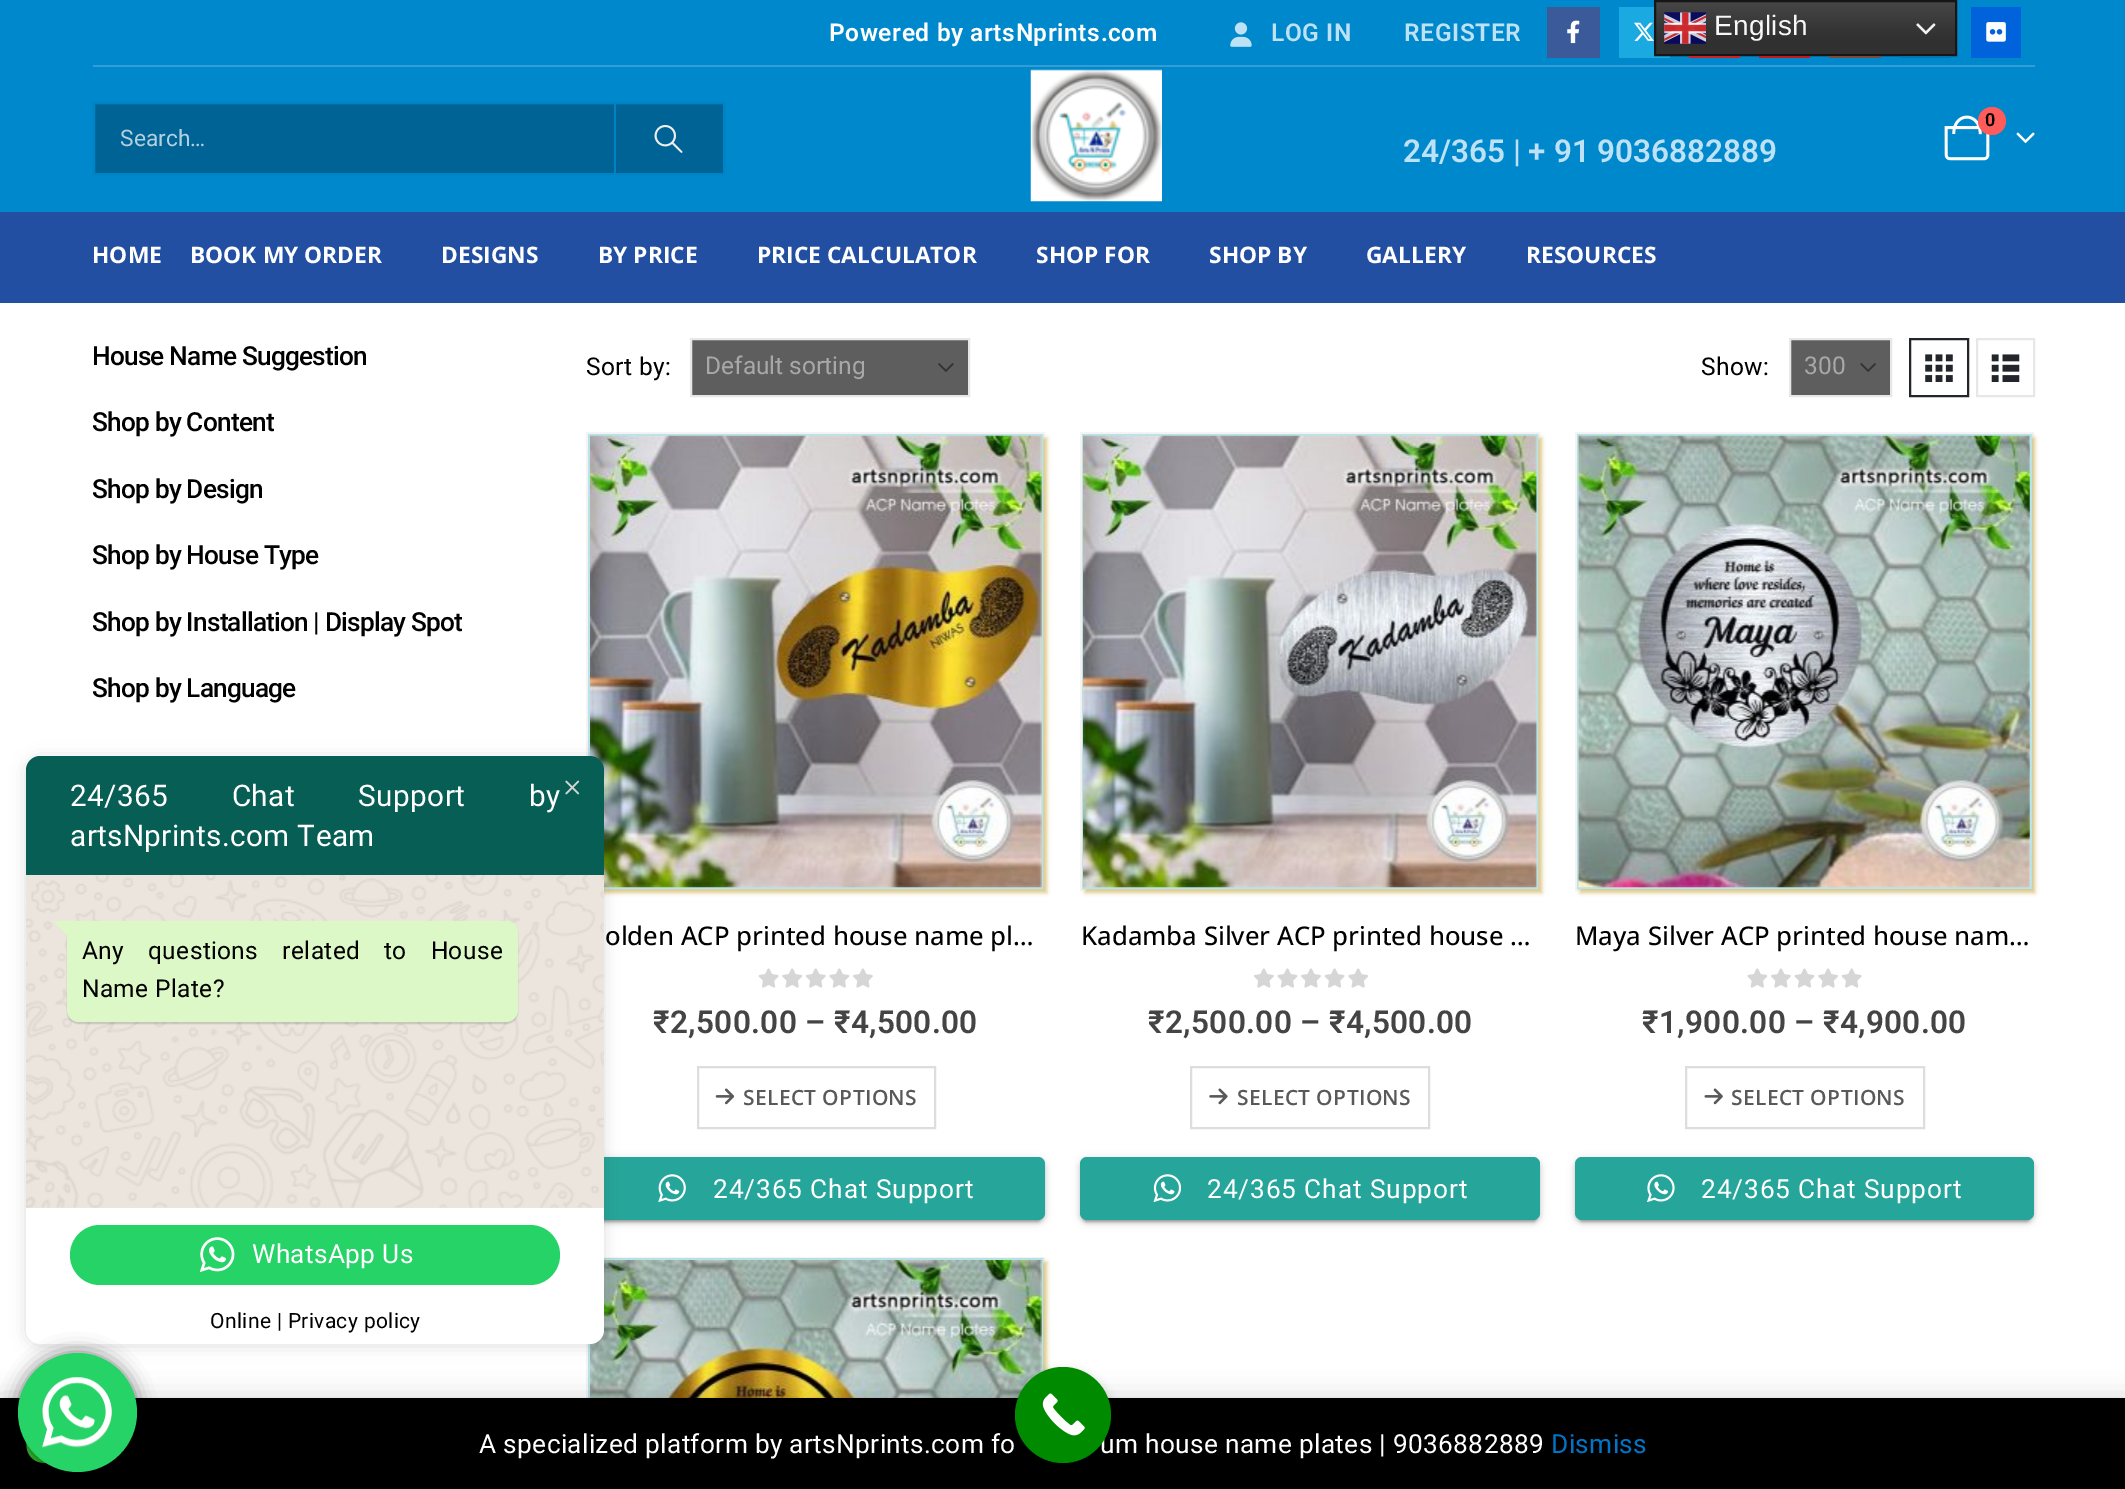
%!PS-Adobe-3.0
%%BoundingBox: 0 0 2125 1489
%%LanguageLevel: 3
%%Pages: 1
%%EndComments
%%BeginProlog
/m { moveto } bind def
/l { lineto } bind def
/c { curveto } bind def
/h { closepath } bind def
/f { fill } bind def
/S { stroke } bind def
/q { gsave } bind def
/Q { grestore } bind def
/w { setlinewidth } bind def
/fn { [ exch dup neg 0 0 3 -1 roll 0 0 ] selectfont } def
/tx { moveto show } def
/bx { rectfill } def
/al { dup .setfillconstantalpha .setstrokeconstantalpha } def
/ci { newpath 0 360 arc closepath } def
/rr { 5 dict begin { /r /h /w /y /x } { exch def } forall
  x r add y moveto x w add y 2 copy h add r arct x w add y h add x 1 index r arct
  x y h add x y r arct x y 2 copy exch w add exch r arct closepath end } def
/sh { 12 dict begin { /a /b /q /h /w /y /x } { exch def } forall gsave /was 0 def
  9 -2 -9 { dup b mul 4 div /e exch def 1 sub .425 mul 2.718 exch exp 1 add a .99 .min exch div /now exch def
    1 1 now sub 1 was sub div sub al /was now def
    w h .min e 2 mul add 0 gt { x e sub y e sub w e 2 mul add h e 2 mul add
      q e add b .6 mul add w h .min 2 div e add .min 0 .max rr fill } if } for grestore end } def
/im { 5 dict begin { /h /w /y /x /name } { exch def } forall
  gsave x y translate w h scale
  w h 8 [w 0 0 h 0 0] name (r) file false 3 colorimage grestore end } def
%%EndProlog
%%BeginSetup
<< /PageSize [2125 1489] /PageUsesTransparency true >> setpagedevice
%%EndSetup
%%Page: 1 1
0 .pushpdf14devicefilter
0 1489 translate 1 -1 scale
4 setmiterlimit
1 setgray
0 0 2125 1489 bx
0 0.533 0.8 setrgbcolor
0 0 2125 212 bx
0.102 0.663 0.882 setrgbcolor
1619 7 51 51 bx
q 1656 2 m 1955 2 l 1955 54 l 1656 54 l h clip newpath
<< /ShadingType 2 /ColorSpace /DeviceRGB /Coords [1805 0 1805 56] /Extend [true true] /Function << /FunctionType 3 /Domain [0 1] /Functions [<< /FunctionType 2 /Domain [0 1] /C0 [0.278 0.278 0.278] /C1 [0.188 0.188 0.188] /N 1 >> << /FunctionType 2 /Domain [0 1] /C0 [0.188 0.188 0.188] /C1 [0.188 0.188 0.188] /N 1 >>] /Bounds [0.7] /Encode [0 1 0 1] >> >> shfill Q
0.086 setgray
2 w
1655 1 301 54 rectstroke
(image0.raw) 1664 12 42 32 im
/LiberationSans-Regular 28 fn
0.969 setgray
1714 35 m 0.35 0 (English) ashow
(image1.raw) 1916 23 20 12 im
0.196 0.62 0.835 setrgbcolor
93 65 1942 2 bx
/Roboto-SemiBold 24.5 fn
1 setgray
829 41 m 0.6 0 (Powered by artsNprints.com) ashow
(image2.raw) 1230 22 22 25 im
0.741 0.882 0.961 setrgbcolor
1271 41 m 0.6 0 (LOG IN) ashow
1404 41 m 0.6 0 (REGISTER) ashow
0.231 0.353 0.604 setrgbcolor
1547 7 53 51 bx
(image3.raw) 1567 20 13 24 im
(image4.raw) 1634 22 20 19 im
0.8 0.129 0.153 setrgbcolor
1689 56 51 2 bx
0.765 0.098 0.118 setrgbcolor
1759 56 51 2 bx
0.486 0.29 0.227 setrgbcolor
1829 56 52 2 bx
0 0.451 0.698 setrgbcolor
1901 56 50 2 bx
0 0.388 0.863 setrgbcolor
1971 7 50 51 bx
(image5.raw) 1986 22 20 20 im
0 0.388 0.584 setrgbcolor
94 103 m 724 103 l 724 174 l 94 174 l h q f Q
0 0.514 0.769 setrgbcolor
S
614 103 2 70 bx
/Roboto-Regular 22.75 fn
0.702 0.816 0.875 setrgbcolor
(Search…) 120 146 tx
(image6.raw) 654 125 29 28 im
(image7.raw) 1030 69 132 133 im
(image8.raw) 1944 115 46 46 im
1 0.357 0.357 setrgbcolor
1992 121 14 ci f
/Roboto-SemiBold 18 fn
0 setgray
1985 126 m 0.35 0 (0) ashow
(image9.raw) 2016 132 19 12 im
/Roboto-SemiBold 31.5 fn
0.741 0.882 0.961 setrgbcolor
(24/365 | + 91 9036882889) 1403 162 tx
0.133 0.31 0.635 setrgbcolor
0 212 2125 91 bx
/OpenSans-Bold 22.75 fn
1 setgray
(HOME) 92 263 tx
(BOOK MY ORDER) 190 263 tx
(DESIGNS) 441 263 tx
(BY PRICE) 598 263 tx
(PRICE CALCULATOR) 757 263 tx
(SHOP FOR) 1036 263 tx
(SHOP BY) 1209 263 tx
(GALLERY) 1366 263 tx
(RESOURCES) 1526 263 tx
/Roboto-Medium 26.25 fn
0 setgray
92 365 m -0.8 0 (House Name Suggestion) ashow
92 431 m -0.8 0 (Shop by Content) ashow
92 498 m -0.8 0 (Shop by Design) ashow
92 564 m -0.8 0 (Shop by House Type) ashow
92 631 m -0.8 0 (Shop by Installation | Display Spot) ashow
92 697 m -0.8 0 (Shop by Language) ashow
/Roboto-Regular 24.5 fn
586 375 m 0.35 0 (Sort by:) ashow
0.369 setgray
692 340 276 55 bx
(image10.raw) 938 363 16 9 im
0.906 setgray
691 339 278 57 rectstroke
0.659 setgray
(Default sorting) 705 374 tx
0 setgray
1701 375 m 0.35 0 (Show:) ashow
0.369 setgray
1791 340 99 55 bx
(image11.raw) 1860 363 16 9 im
0.906 setgray
1790 339 101 57 rectstroke
0.659 setgray
(300) 1804 374 tx
0.133 0.145 0.161 setrgbcolor
1910 339 58 57 rectstroke
(image12.raw) 1925 354 28 28 im
0.906 setgray
1977 339 57 57 rectstroke
(image13.raw) 1991 354 29 28 im
0.957 setgray
587 433 457 457 rectstroke
0.871 0.788 0.545 setrgbcolor
592 438 455 455 0 2 1 sh
0.722 0.89 0.91 setrgbcolor
589 435 453 453 rectstroke
(image14.raw) 590 435 452 453 im
/OpenSans-Medium 25.75 fn
0 setgray
(olden ACP printed house name pl…) 605 945 tx
(image15.raw) 758 968 115 20 im
/Roboto-SemiBold 31.5 fn
0.267 setgray
653 1033 m 0.35 0 (₹2,500.00 – ₹4,500.00) ashow
0.867 setgray
698 1067 237 61 rectstroke
(image16.raw) 715 1088 20 17 im
/OpenSans-SemiBold 21 fn
0.349 setgray
743 1105 m 0.35 0 (SELECT OPTIONS) ashow
0 setgray
590 1166 451 56 4 1 0.2 sh
586 1159 459 63 7 4.5 0.12 sh
586 1160 459 63 7 2 0.14 sh
0.149 0.651 0.604 setrgbcolor
586 1157 459 63 7 rr f
(image17.raw) 658 1174 28 28 im
/Roboto-Regular 26.25 fn
1 setgray
713 1198 m 0.9 0 (24/365 Chat Support) ashow
0.957 setgray
1081 433 458 457 rectstroke
0.871 0.788 0.545 setrgbcolor
1085 438 457 455 0 2 1 sh
0.722 0.89 0.91 setrgbcolor
1083 435 454 453 rectstroke
(image18.raw) 1083 435 454 453 im
/OpenSans-Medium 25.75 fn
0 setgray
(Kadamba Silver ACP printed house …) 1081 945 tx
(image19.raw) 1254 968 114 20 im
/Roboto-SemiBold 31.5 fn
0.267 setgray
1148 1033 m 0.35 0 (₹2,500.00 – ₹4,500.00) ashow
0.867 setgray
1191 1067 238 61 rectstroke
(image20.raw) 1209 1088 19 17 im
/OpenSans-SemiBold 21 fn
0.349 setgray
1237 1105 m 0.35 0 (SELECT OPTIONS) ashow
0 setgray
1083 1166 454 56 4 1 0.2 sh
1080 1159 460 63 7 4.5 0.12 sh
1080 1160 460 63 7 2 0.14 sh
0.149 0.651 0.604 setrgbcolor
1080 1157 460 63 7 rr f
(image21.raw) 1153 1174 28 28 im
/Roboto-Regular 26.25 fn
1 setgray
1207 1198 m 0.9 0 (24/365 Chat Support) ashow
0.957 setgray
1576 433 457 457 rectstroke
q
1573 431 m 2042 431 l 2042 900 l 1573 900 l h 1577 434 m 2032 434 l 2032 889 l 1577 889 l h eoclip newpath
0.871 0.788 0.545 setrgbcolor
1580 438 455 455 0 2 1 sh
Q
0.61 al
0.545 0.82 0.851 setrgbcolor
1578 435 453 453 rectstroke
1 al
(image22.raw) 1578 435 452 453 im
/OpenSans-Medium 25.75 fn
0 setgray
(Maya Silver ACP printed house nam…) 1575 945 tx
(image23.raw) 1747 968 115 20 im
/Roboto-SemiBold 31.5 fn
0.267 setgray
1642 1033 m 0.35 0 (₹1,900.00 – ₹4,900.00) ashow
0.867 setgray
1686 1067 238 61 rectstroke
(image24.raw) 1704 1088 19 17 im
/OpenSans-SemiBold 21 fn
0.349 setgray
1731 1105 m 0.35 0 (SELECT OPTIONS) ashow
0 setgray
1579 1166 451 56 4 1 0.2 sh
1575 1159 459 63 7 4.5 0.12 sh
1575 1160 459 63 7 2 0.14 sh
0.149 0.651 0.604 setrgbcolor
1575 1157 459 63 7 rr f
(image25.raw) 1647 1174 28 28 im
/Roboto-Regular 26.25 fn
1 setgray
1701 1198 m 0.9 0 (24/365 Chat Support) ashow
0.957 setgray
587 1258 457 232 rectstroke
q
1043 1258 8 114 rectclip
0.871 0.788 0.545 setrgbcolor
592 1262 455 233 0 2 1 sh
Q
0.61 al
0.545 0.82 0.851 setrgbcolor
589 1259 453 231 rectstroke
1 al
(image26.raw) 590 1260 452 138 im
0 setgray
26 758 578 588 14 8 0.14 sh
0.027 0.369 0.329 setrgbcolor
40 756 m 590 756 l 597.5 756 604 762.5 604 770 c 604 877 l 26 877 l 26 770 l 26 762.5 32.5 756 40 756 c h f
/Roboto-Regular 29.75 fn
1 setgray
70 806 m 56 0 32 0.35 0 (24/365 Chat Support by) awidthshow
70 846 m 0.35 0 (artsNprints.com Team) ashow
0.925 0.898 0.867 setrgbcolor
26 875 578 333 bx
(image27.raw) 26 875 578 333 im
0 setgray
67 922 451 102 12 0.5 0.14 sh
0.863 0.973 0.776 setrgbcolor
67 921 m 506 921 l 512.5 921 518 926.5 518 933 c 518 1010 l 518 1016.5 512.5 1022 506 1022 c 79 1022 l 72.5 1022 67 1016.5 67 1010 c h f
53 921 m 68 921 l 68 936 l h f
/Roboto-Regular 24.5 fn
0 setgray
82 959 m 17.5 0 32 0.35 0 (Any questions related to House) awidthshow
82 997 m 0.35 0 (Name Plate?) ashow
1 setgray
26 1208 578 91 bx
0.145 0.827 0.4 setrgbcolor
70 1225 490 60 30 rr f
(image28.raw) 200 1237 35 35 im
/Roboto-Regular 26.25 fn
1 setgray
252 1263 m 0.35 0 (WhatsApp Us) ashow
26 1299 m 604 1299 l 604 1330 l 604 1337.5 597.5 1344 590 1344 c 40 1344 l 32.5 1344 26 1337.5 26 1330 c h f
/Roboto-Regular 21 fn
0 setgray
210 1328 m 0.35 0 (Online | Privacy policy) ashow
(image29.raw) 565 780 15 15 im
0 1400 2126 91 0 13 0.2 sh
0 1398 2125 91 bx
(image30.raw) 26 1442 21 21 im
18 1353 119 119 59.5 9.5 0.5 sh
0.145 0.827 0.4 setrgbcolor
77.5 1412.5 59.5 ci f
(image31.raw) 42 1377 70 71 im
0 setgray
1015 1372 96 96 48 5 0.3 sh
/Roboto-Regular 26.25 fn
1 setgray
1100 1453 m 0.35 0 (um house name plates | 9036882889) ashow
0 0.541 0 setrgbcolor
1063 1415 48 ci f
(image32.raw) 1042 1393 43 43 im
1 setgray
479 1453 m 0.35 0 (A specialized platform by artsNprints.com fo) ashow
0 0.455 0.776 setrgbcolor
1551 1453 m 0.35 0 (Dismiss) ashow
.poppdf14devicefilter showpage
%%EOF
